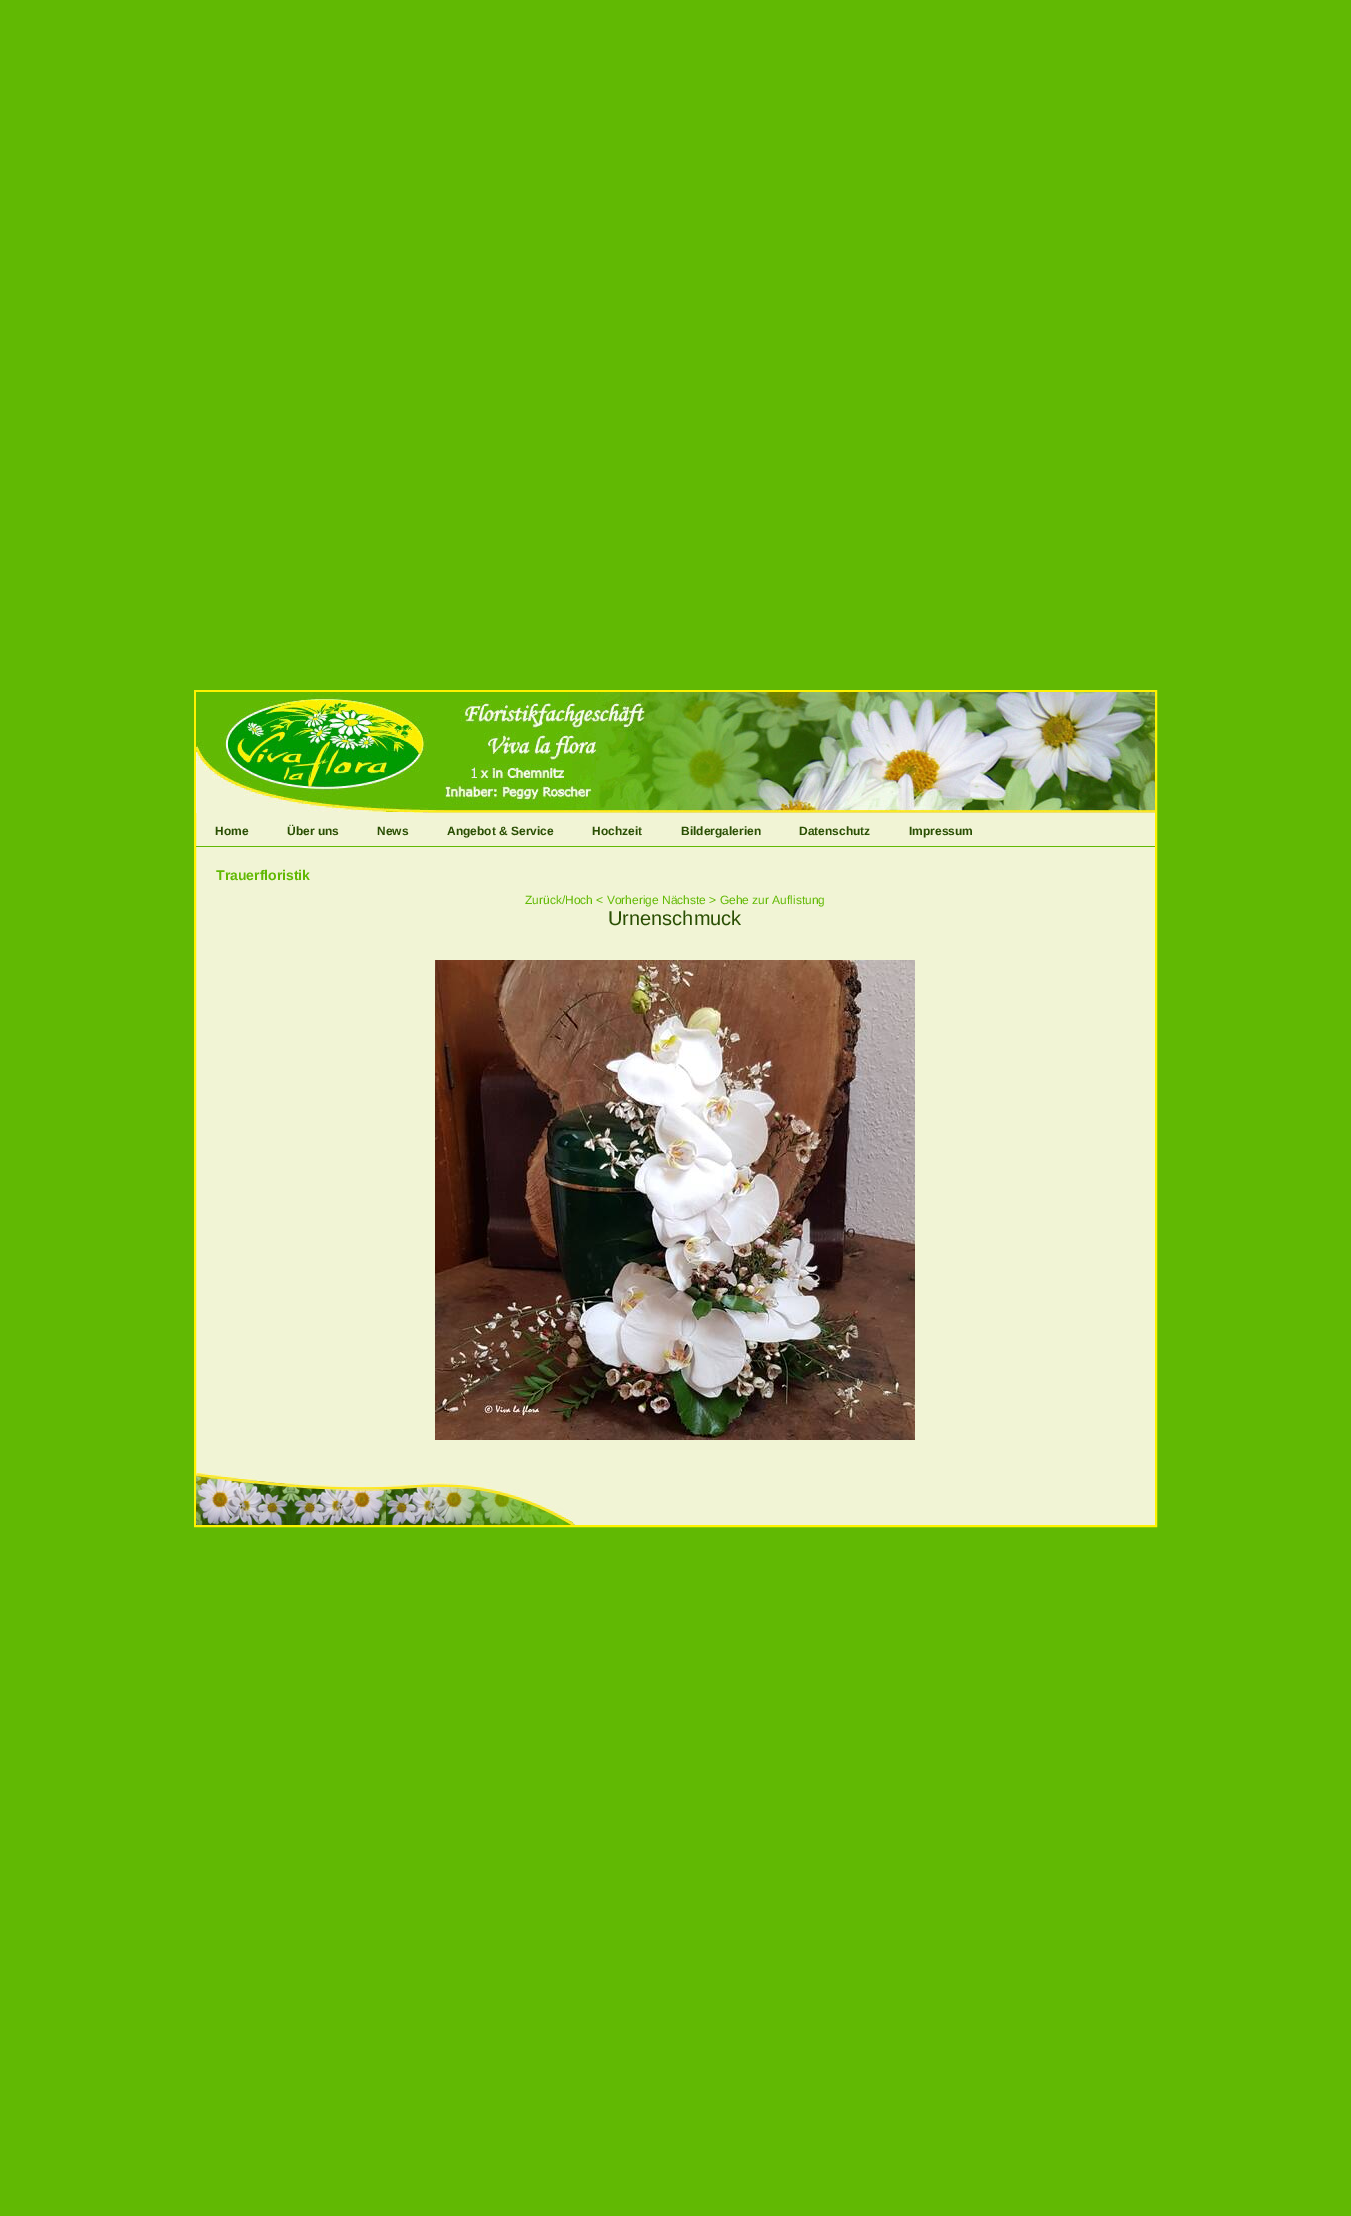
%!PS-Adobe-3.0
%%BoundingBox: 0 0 1351 2216
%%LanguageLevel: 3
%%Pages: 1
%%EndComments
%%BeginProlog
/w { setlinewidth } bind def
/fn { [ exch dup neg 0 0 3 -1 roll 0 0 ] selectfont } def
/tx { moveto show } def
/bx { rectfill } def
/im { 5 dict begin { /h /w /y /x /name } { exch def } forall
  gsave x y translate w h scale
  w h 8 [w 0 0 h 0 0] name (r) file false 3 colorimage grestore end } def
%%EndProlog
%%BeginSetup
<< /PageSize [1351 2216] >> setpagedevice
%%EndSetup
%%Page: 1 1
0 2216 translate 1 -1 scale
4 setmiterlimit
0.38 0.725 0.012 setrgbcolor
0 0 1351 2216 bx
0.945 0.957 0.835 setrgbcolor
196 813 959 712 bx
0.996 0.949 0 setrgbcolor
2 w
195 691 961 835 rectstroke
(image0.raw) 196 692 959 121 im
0.38 0.725 0.012 setrgbcolor
196 846 959 1 bx
/LiberationSans-Bold 12 fn
0.165 0.31 0.012 setrgbcolor
(Home) 215 835 tx
(Über uns) 287 835 tx
(News) 377 835 tx
(Angebot & Service) 447 835 tx
(Hochzeit) 592 835 tx
(Bildergalerien) 681 835 tx
(Datenschutz) 799 835 tx
(Impressum) 909 835 tx
/LiberationSans-Bold 14 fn
0.38 0.725 0.012 setrgbcolor
(Trauerfloristik) 216 880 tx
/LiberationSans-Regular 12 fn
(Zurück/Hoch < Vorherige Nächste > Gehe zur Auflistung) 525 904 tx
/LiberationSans-Regular 20 fn
0.165 0.31 0.012 setrgbcolor
(Urnenschmuck) 608 925 tx
(image1.raw) 435 960 480 480 im
(image2.raw) 196 1473 379 52 im
showpage
%%EOF
